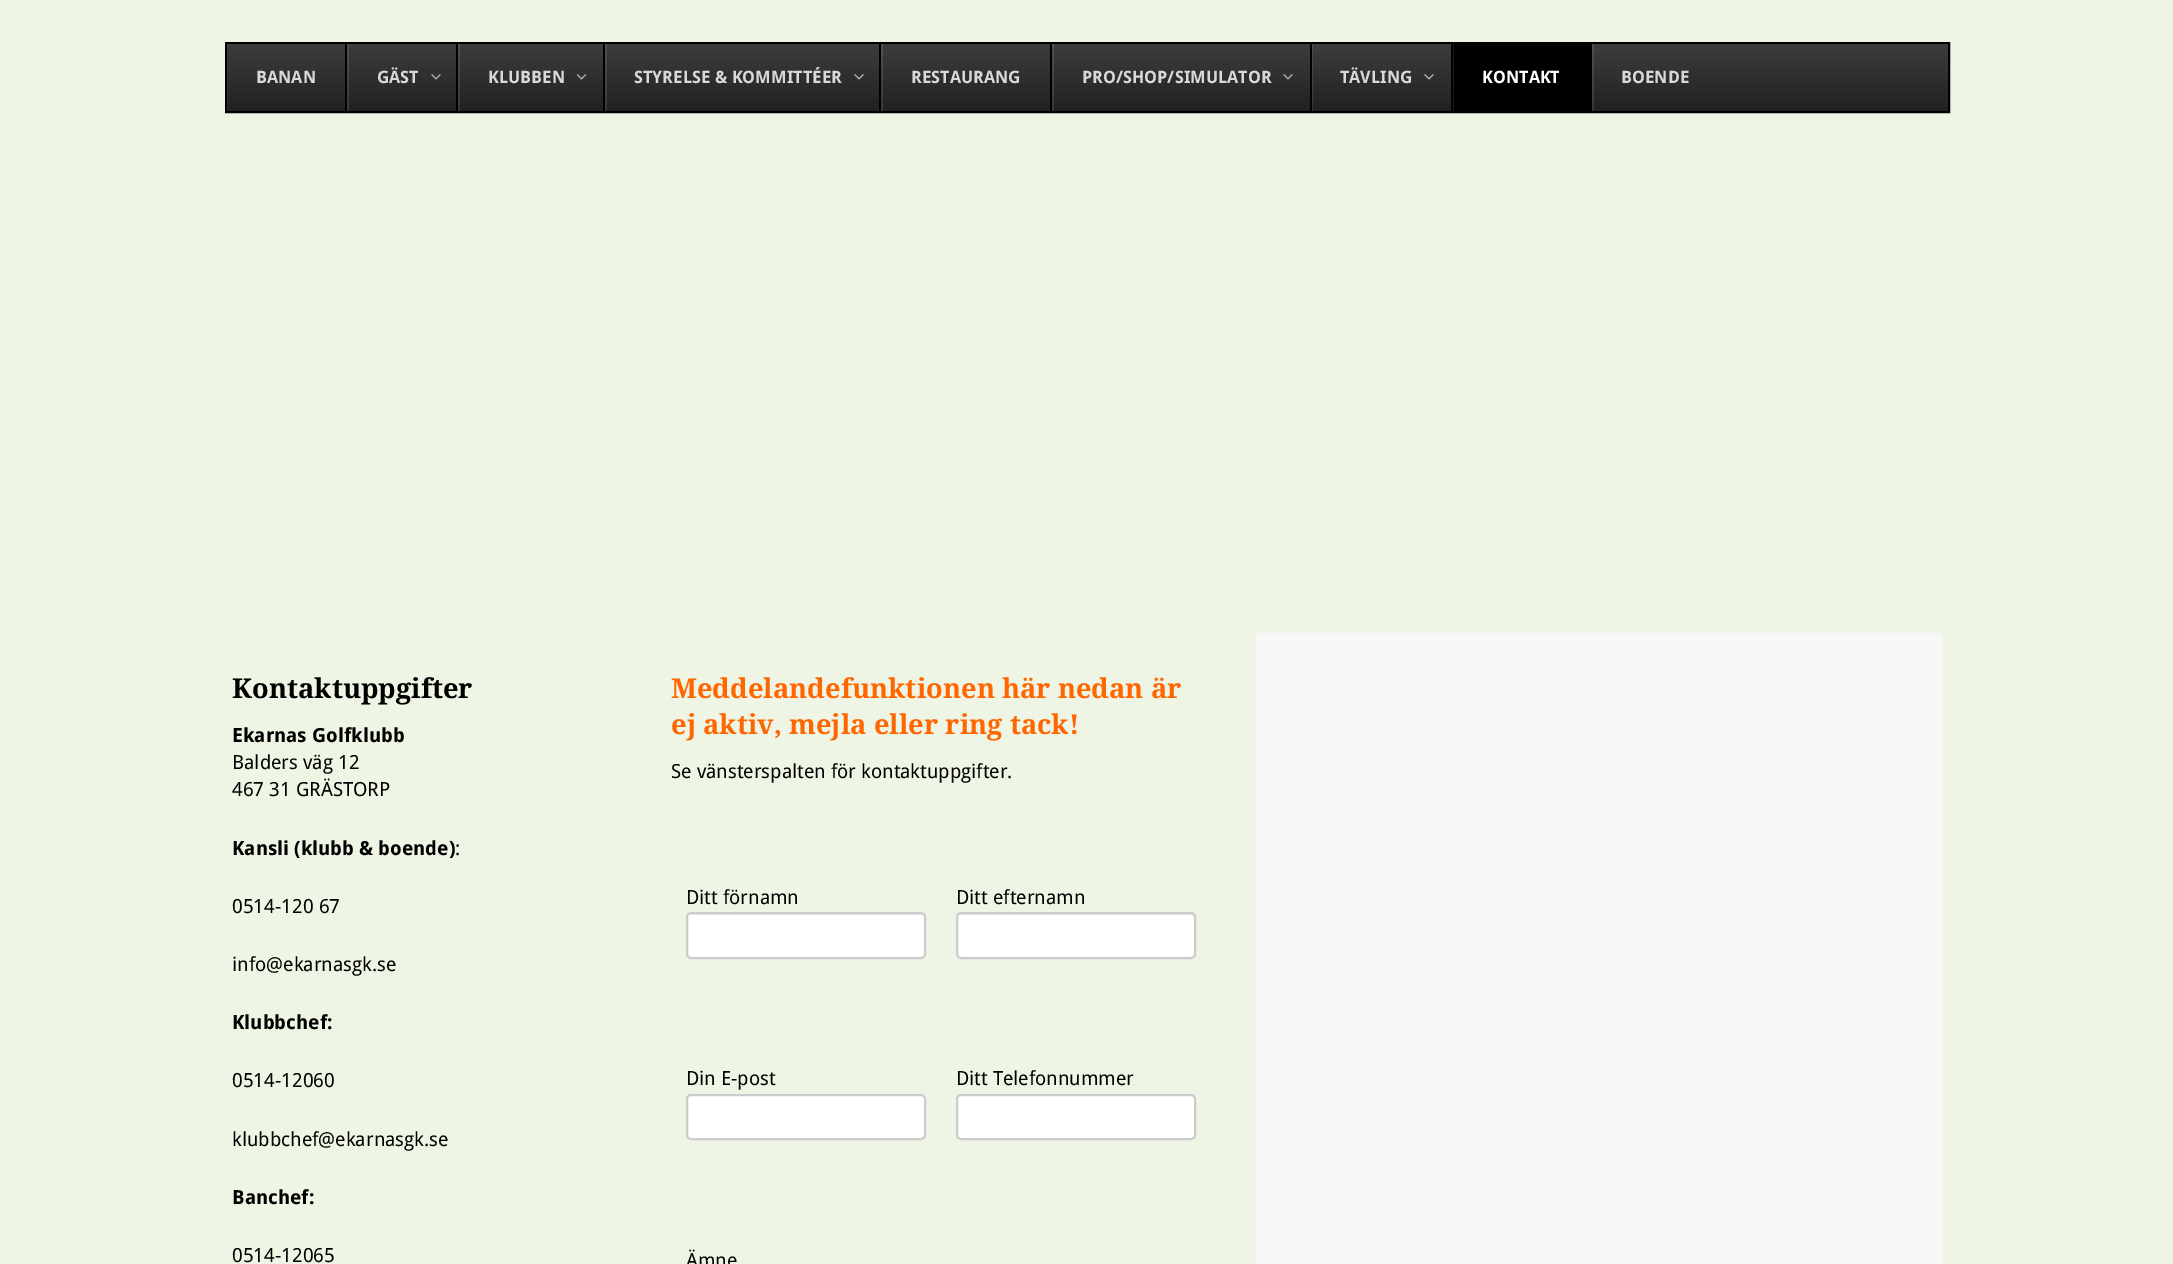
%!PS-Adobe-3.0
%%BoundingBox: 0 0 2173 1264
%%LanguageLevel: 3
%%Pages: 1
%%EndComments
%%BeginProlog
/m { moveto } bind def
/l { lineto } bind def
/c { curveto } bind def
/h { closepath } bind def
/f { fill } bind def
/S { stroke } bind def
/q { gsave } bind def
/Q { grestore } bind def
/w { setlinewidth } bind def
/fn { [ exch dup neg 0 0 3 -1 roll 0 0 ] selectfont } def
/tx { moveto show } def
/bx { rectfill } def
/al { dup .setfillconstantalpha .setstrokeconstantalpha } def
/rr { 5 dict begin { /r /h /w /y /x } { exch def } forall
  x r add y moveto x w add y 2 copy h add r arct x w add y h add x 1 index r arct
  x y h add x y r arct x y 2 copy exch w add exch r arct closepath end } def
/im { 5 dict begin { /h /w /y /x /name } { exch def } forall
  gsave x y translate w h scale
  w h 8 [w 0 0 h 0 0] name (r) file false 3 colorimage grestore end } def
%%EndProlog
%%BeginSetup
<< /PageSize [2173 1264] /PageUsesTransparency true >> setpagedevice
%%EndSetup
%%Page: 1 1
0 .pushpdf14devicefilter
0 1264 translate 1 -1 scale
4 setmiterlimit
0.933 0.961 0.894 setrgbcolor
0 0 2173 1264 bx
q 227 44 m 1948 44 l 1948 111 l 227 111 l h clip newpath
<< /ShadingType 2 /ColorSpace /DeviceRGB /Coords [1088 43 1088 111] /Extend [true true] /Function << /FunctionType 2 /Domain [0 1] /C0 [0.239 0.239 0.239] /C1 [0.129 0.129 0.129] /N 1 >> >> shfill Q
q
227 44 1722 67 rectclip
0.1 al
1 setgray
78 -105 m 2097 -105 l 2097 260 l 78 260 l h 228 45 m 1950 45 l 1950 112 l 228 112 l h eofill
Q
0 setgray
2 w
226 43 1723 69 rectstroke
/DroidSans-Bold 17.1 fn
0.851 setgray
(BANAN) 256 83 tx
0.1 al
1 setgray
347 44 2 67 bx
1 al
0 setgray
345 44 2 67 bx
0.851 setgray
(GÄST) 377 83 tx
(image0.raw) 431 74 10 6 im
0.1 al
1 setgray
458 44 2 67 bx
1 al
0 setgray
456 44 2 67 bx
0.851 setgray
(KLUBBEN) 488 83 tx
(image1.raw) 576 74 11 6 im
0.1 al
1 setgray
605 44 2 67 bx
1 al
0 setgray
603 44 2 67 bx
0.851 setgray
(STYRELSE & KOMMITTÉER) 634 83 tx
(image0.raw) 854 74 10 6 im
0.1 al
1 setgray
881 44 2 67 bx
1 al
0 setgray
879 44 2 67 bx
0.851 setgray
(RESTAURANG) 911 83 tx
0.1 al
1 setgray
1052 44 2 67 bx
1 al
0 setgray
1050 44 2 67 bx
0.851 setgray
(PRO/SHOP/SIMULATOR) 1082 83 tx
(image0.raw) 1283 74 10 6 im
0.1 al
1 setgray
1312 44 1 67 bx
1 al
0 setgray
1310 44 2 67 bx
0.851 setgray
(TÄVLING) 1340 83 tx
(image0.raw) 1424 74 10 6 im
0 setgray
1454 44 138 67 bx
0.102 setgray
1453 44 1 67 bx
0 setgray
1451 44 2 67 bx
1 setgray
(KONTAKT) 1482 83 tx
0.1 al
1592 44 2 67 bx
1 al
0.851 setgray
(BOENDE) 1621 83 tx
/DroidSerif-Bold 27.25 fn
0 setgray
(Kontaktuppgifter) 232 698 tx
/DroidSans-Bold 19.5 fn
(Ekarnas Golfklubb) 232 742 tx
/DroidSans-Regular 19.5 fn
(Balders väg 12) 232 769 tx
(467 31 GRÄSTORP) 232 796 tx
/DroidSans-Bold 19.5 fn
(Kansli \(klubb & boende\)) 232 855 tx
/DroidSans-Regular 19.5 fn
(:) 455 855 tx
(0514-120 67) 232 913 tx
(info@ekarnasgk.se) 232 971 tx
/DroidSans-Bold 19.5 fn
(Klubbchef:) 232 1029 tx
/DroidSans-Regular 19.5 fn
(0514-12060) 232 1087 tx
(klubbchef@ekarnasgk.se) 232 1146 tx
/DroidSans-Bold 19.5 fn
(Banchef:) 232 1204 tx
/DroidSans-Regular 19.5 fn
(0514-12065) 232 1262 tx
/DroidSerif-Bold 27.25 fn
1 0.4 0 setrgbcolor
(Meddelandefunktionen här nedan är) 671 698 tx
(ej aktiv, mejla eller ring tack!) 671 734 tx
/DroidSans-Regular 19.5 fn
0 setgray
(Se vänsterspalten för kontaktuppgifter.) 671 778 tx
(Ditt förnamn) 686 904 tx
1 setgray
686 912 240 47 5 rr f
0.925 setgray
690 915 m 922 915 l 924 916 l 924 918 l 924 916 923 914 921 914 c 690 914 l 688 914 687 916 687 918 c 687 916 688 915 690 915 c h f
0.8 setgray
687 913 238 45 4 rr S
0 setgray
(Ditt efternamn) 956 904 tx
1 setgray
956 912 240 47 5 rr f
0.925 setgray
960 915 m 1192 915 l 1194 916 l 1194 918 l 1194 916 1193 914 1191 914 c 960 914 l 958 914 957 916 957 918 c 957 916 958 915 960 915 c h f
0.8 setgray
957 913 238 45 4 rr S
0 setgray
(Din E-post) 686 1085 tx
1 setgray
686 1094 240 46 5 rr f
0.925 setgray
690 1096 m 921 1096 l 923 1096 924 1098 924 1100 c 924 1098 l 924 1096 923 1095 921 1095 c 690 1095 l 688 1095 687 1096 687 1098 c 687 1100 l 687 1098 688 1096 690 1096 c h f
0.8 setgray
687 1095 238 44 4 rr S
0 setgray
(Ditt Telefonnummer) 956 1085 tx
1 setgray
956 1094 240 46 5 rr f
0.925 setgray
960 1096 m 1191 1096 l 1193 1096 1194 1098 1194 1100 c 1194 1098 l 1194 1096 1193 1095 1191 1095 c 960 1095 l 958 1095 957 1096 957 1098 c 957 1100 l 957 1098 958 1096 960 1096 c h f
0.8 setgray
957 1095 238 44 4 rr S
0 setgray
(Ämne) 686 1267 tx
0.969 setgray
1256 633 687 631 bx
.poppdf14devicefilter showpage
%%EOF
